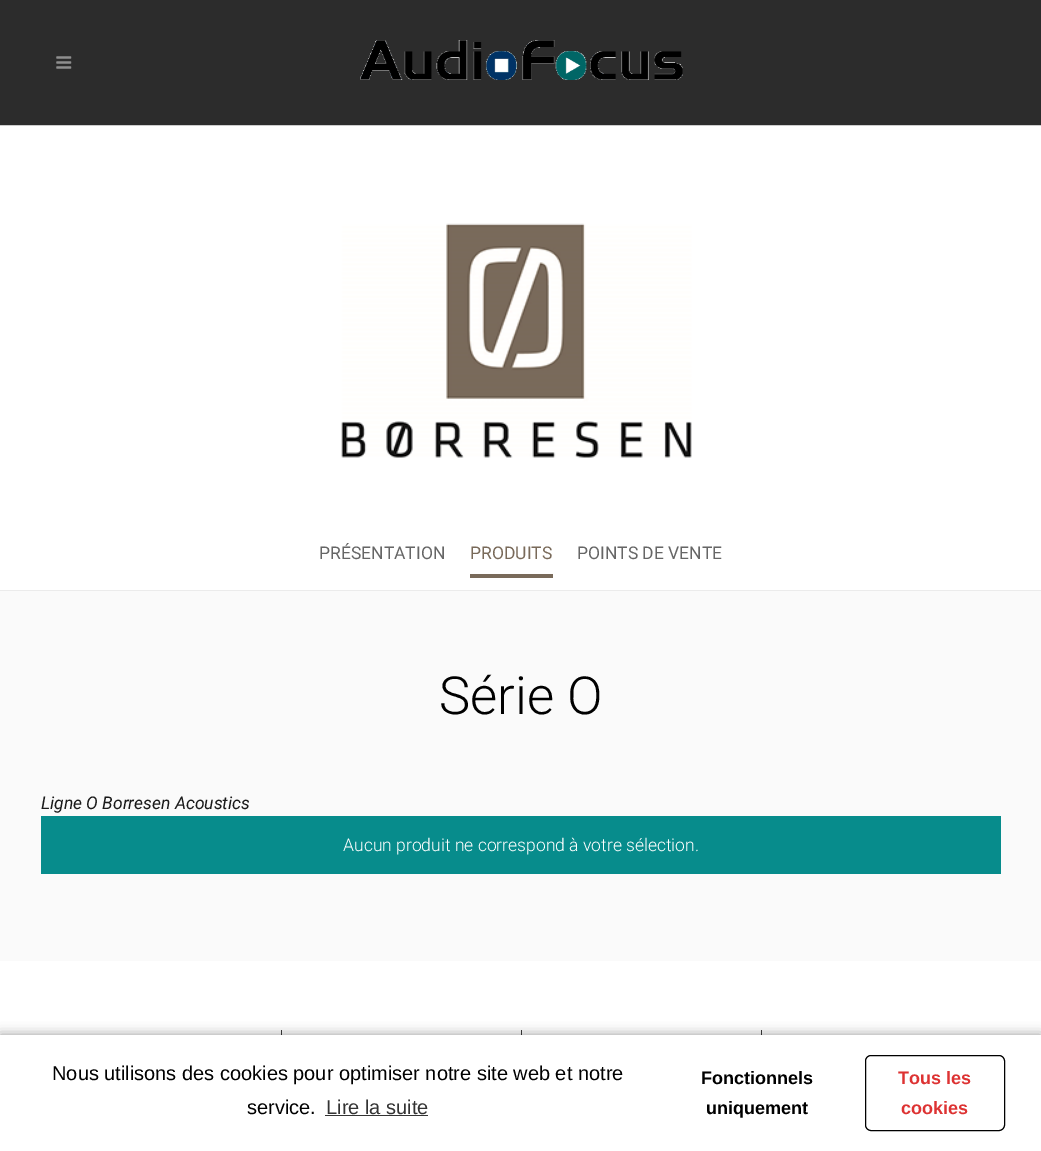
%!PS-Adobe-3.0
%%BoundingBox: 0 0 1041 1151
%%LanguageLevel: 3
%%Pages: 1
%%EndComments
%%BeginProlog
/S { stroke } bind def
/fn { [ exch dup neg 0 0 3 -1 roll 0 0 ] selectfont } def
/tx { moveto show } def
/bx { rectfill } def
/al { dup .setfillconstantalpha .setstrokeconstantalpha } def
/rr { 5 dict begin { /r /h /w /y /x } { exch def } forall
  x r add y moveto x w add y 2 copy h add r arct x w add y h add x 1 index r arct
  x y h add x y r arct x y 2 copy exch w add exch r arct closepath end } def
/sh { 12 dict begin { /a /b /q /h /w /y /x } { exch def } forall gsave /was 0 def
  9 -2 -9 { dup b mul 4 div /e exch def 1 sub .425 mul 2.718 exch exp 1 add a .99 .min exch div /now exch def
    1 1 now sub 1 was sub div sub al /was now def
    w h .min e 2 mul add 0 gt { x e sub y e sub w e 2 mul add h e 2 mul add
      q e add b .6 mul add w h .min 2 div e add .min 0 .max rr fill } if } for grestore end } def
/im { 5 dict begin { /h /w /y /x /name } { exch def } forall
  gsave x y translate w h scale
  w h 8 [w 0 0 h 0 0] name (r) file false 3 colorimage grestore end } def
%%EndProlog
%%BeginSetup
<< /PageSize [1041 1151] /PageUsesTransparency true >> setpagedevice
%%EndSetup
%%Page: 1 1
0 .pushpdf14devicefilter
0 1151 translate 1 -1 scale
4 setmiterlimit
1 setgray
0 0 1041 1151 bx
0.173 setgray
0 0 1041 125 bx
0.8 setgray
0 125 1041 1 bx
(image0.raw) 56 56 16 13 im
(image1.raw) 360 40 323 40 im
0.98 setgray
0 591 1041 370 bx
0.922 setgray
0 590 1041 1 bx
(image2.raw) 341 223 351 235 im
/Roboto-Regular 17.5 fn
0.4 setgray
(PRÉSENTATION) 319 559 tx
0.475 0.416 0.353 setrgbcolor
470 574 83 4 bx
(PRODUITS) 470 559 tx
0.4 setgray
(POINTS DE VENTE) 577 559 tx
/Roboto-Light 52.5 fn
0 setgray
(Série O) 439 714 tx
/Roboto-Italic 17.5 fn
0.102 setgray
(Ligne O Borresen Acoustics) 41 809 tx
0.027 0.549 0.549 setrgbcolor
41 816 960 58 bx
/Roboto-Light 17.5 fn
1 setgray
(Aucun produit ne correspond à votre sélection.) 343 851 tx
0.239 setgray
281 1030 1 5 bx
521 1030 1 5 bx
761 1030 1 5 bx
0 setgray
0 1035 1041 116 0 6 0.4 sh
1 setgray
0 1035 1041 116 bx
/LiberationSans-Regular 20 fn
0 setgray
(Nous utilisons des cookies pour optimiser notre site web et notre) 52 1080 tx
(service.) 247 1114 tx
0.2 setgray
(Lire la suite) 326 1114 tx
325 1115 103 1 bx
/LiberationSans-Bold 18 fn
0 setgray
(Fonctionnels) 701 1084 tx
(uniquement) 706 1114 tx
865.5 1055.5 139 75 5.5 rr S
0.867 0.2 0.2 setrgbcolor
(Tous les) 898 1084 tx
(cookies) 901 1114 tx
.poppdf14devicefilter showpage
%%EOF
